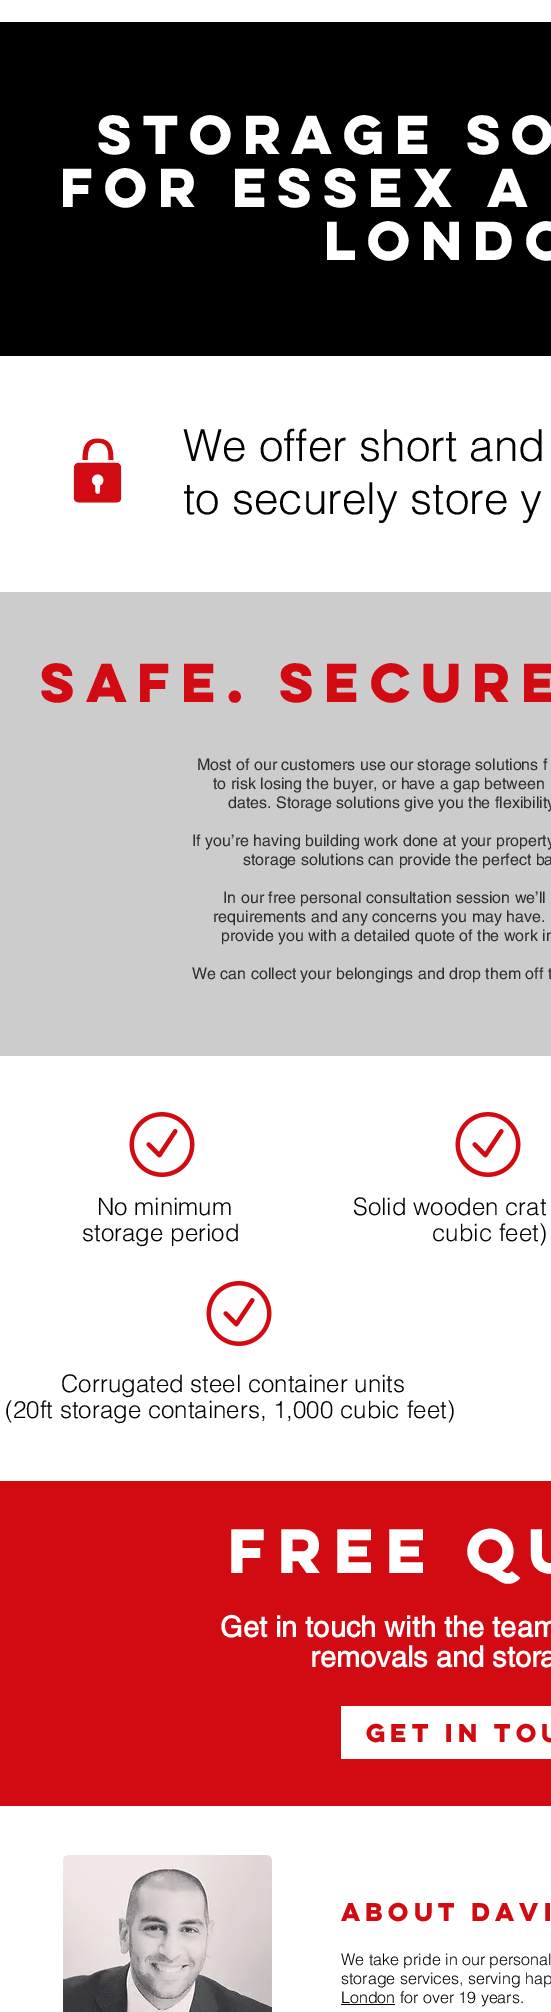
%!PS-Adobe-3.0
%%BoundingBox: 0 0 551 2012
%%LanguageLevel: 3
%%Pages: 1
%%EndComments
%%BeginProlog
/fn { [ exch dup neg 0 0 3 -1 roll 0 0 ] selectfont } def
/tx { moveto show } def
/bx { rectfill } def
/im { 5 dict begin { /h /w /y /x /name } { exch def } forall
  gsave x y translate w h scale
  w h 8 [w 0 0 h 0 0] name (r) file false 3 colorimage grestore end } def
%%EndProlog
%%BeginSetup
<< /PageSize [551 2012] >> setpagedevice
%%EndSetup
%%Page: 1 1
0 2012 translate 1 -1 scale
4 setmiterlimit
1 setgray
0 0 551 2012 bx
0 setgray
0 22 551 334 bx
/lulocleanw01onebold-Bold 49 fn
1 setgray
(Storage so) 97 154 tx
(for Essex a) 60 207 tx
(Londo) 324 260 tx
(image0.raw) 73 438 49 65 im
/helvetica-Light 44 fn
0 setgray
(We offer short and) 183 461 tx
(to securely store y) 183 514 tx
0.8 setgray
0 592 551 464 bx
/lulocleanw01onebold-Bold 49 fn
0.824 0.039 0.067 setrgbcolor
(Safe. Secure) 40 702 tx
/helvetica-Regular 16 fn
0.184 0.18 0.18 setrgbcolor
(Most of our customers use our storage solutions f) 197 770 tx
(to risk losing the buyer, or have a gap between) 213 789 tx
(dates. Storage solutions give you the flexibility) 228 808 tx
(If you’re having building work done at your property) 192 846 tx
(storage solutions can provide the perfect ba) 243 865 tx
(In our free personal consultation session we’ll) 223 903 tx
(requirements and any concerns you may have.) 213 922 tx
(provide you with a detailed quote of the work in) 221 941 tx
(We can collect your belongings and drop them off t) 192 979 tx
(image1.raw) 129 1112 66 65 im
/helvetica-Light 24 fn
0 setgray
(No minimum) 97 1215 tx
(storage period) 82 1241 tx
(image1.raw) 455 1112 66 65 im
(Solid wooden crat) 353 1215 tx
(cubic feet\)) 432 1241 tx
(image1.raw) 206 1281 66 65 im
(Corrugated steel container units) 61 1392 tx
(\(20ft storage containers, 1,000 cubic feet\)) 5 1418 tx
0.824 0.039 0.067 setrgbcolor
0 1481 551 325 bx
/lulocleanw01onebold-Bold 56 fn
1 setgray
(Free qu) 228 1573 tx
/helvetica-Bold 29 fn
(Get in touch with the team) 220 1637 tx
(removals and stora) 310 1667 tx
341 1706 210 53 bx
/lulocleanw01onebold-Bold 23 fn
0.824 0.039 0.067 setrgbcolor
(Get in tou) 366 1742 tx
(image2.raw) 63 1855 209 157 im
(About Davi) 341 1921 tx
/helvetica-Light 16 fn
0 setgray
(We take pride in our personal) 341 1965 tx
(storage services, serving hap) 341 1984 tx
341 2004 54 1 bx
(London for over 19 years.) 341 2003 tx
showpage
%%EOF
